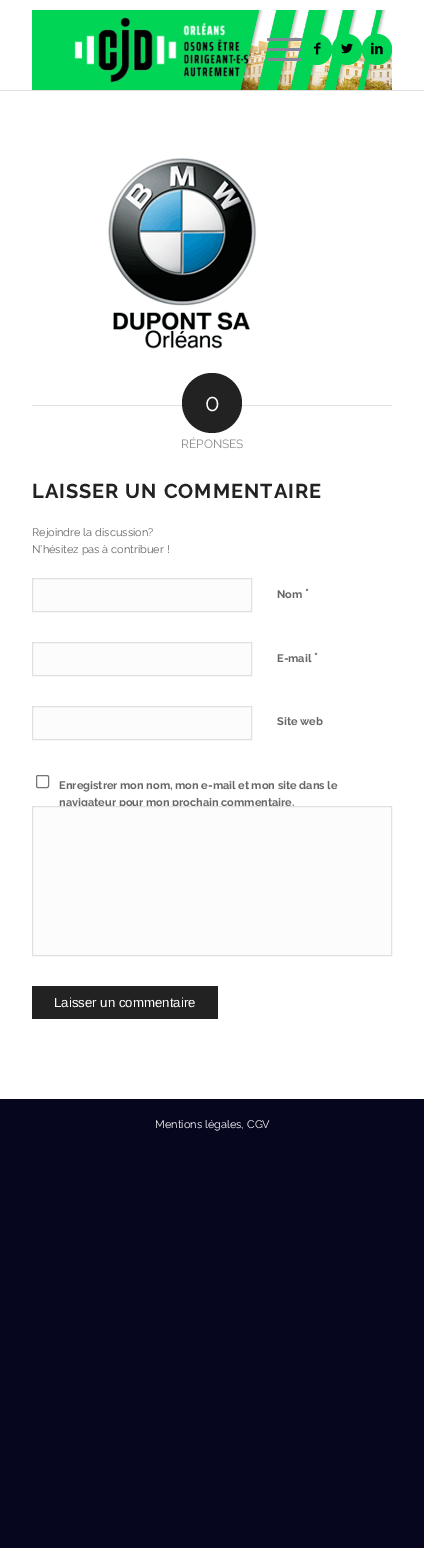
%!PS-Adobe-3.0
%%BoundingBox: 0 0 424 1548
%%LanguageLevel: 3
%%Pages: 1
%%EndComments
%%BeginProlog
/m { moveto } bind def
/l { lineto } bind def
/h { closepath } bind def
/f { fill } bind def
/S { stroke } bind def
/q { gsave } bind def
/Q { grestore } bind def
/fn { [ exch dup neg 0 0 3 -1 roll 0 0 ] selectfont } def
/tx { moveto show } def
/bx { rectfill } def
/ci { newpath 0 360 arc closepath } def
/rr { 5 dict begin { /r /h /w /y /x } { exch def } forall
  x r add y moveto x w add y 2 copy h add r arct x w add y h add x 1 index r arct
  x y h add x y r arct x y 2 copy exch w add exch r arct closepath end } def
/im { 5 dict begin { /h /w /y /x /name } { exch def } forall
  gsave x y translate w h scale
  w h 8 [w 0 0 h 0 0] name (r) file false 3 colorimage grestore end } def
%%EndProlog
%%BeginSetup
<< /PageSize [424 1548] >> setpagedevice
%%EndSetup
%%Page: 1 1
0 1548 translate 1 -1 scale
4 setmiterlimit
0.024 0.024 0.118 setrgbcolor
0 0 424 1548 bx
1 setgray
0 0 424 1099 bx
0.882 setgray
0 90 424 1 bx
(image0.raw) 32 10 360 80 im
(image1.raw) 74 17 175 66 im
0 0.835 0.337 setrgbcolor
317 50 15 ci f
317 49 15 ci f
(image2.raw) 314 42 7 13 im
347 50 15 ci f
347 49 15 ci f
(image3.raw) 341 43 12 11 im
377 50 15 ci f
377 49 15 ci f
(image4.raw) 371 42 12 13 im
0.514 0.522 0.604 setrgbcolor
267 48 35 3 1.5 rr f
267 38 35 3 1.5 rr f
267 58 35 3 1.5 rr f
(image5.raw) 108 158 149 191 im
0.882 setgray
32 405 151 1 bx
241 405 151 1 bx
0.133 setgray
212 403 30 ci f
/Raleway-Regular 24 fn
1 setgray
(0) 205 411 tx
/Raleway-Regular 12 fn
0.569 setgray
(RÉPONSES) 181 448 tx
/Raleway-Bold 20 fn
0.133 setgray
32 498 m 1 0 (LAISSER UN COMMENTAIRE) ashow
/Raleway-Regular 11 fn
0.4 setgray
(Rejoindre la discussion?) 32 536 tx
(N’hésitez pas à contribuer !) 32 553 tx
0.988 setgray
32.5 578.5 m 251.5 578.5 l 251.5 611.5 l 32.5 611.5 l h q f Q
0.882 setgray
S
/Raleway-Bold 11 fn
0.4 setgray
(Nom) 277 598 tx
/Raleway-Regular 13 fn
0.133 setgray
(*) 305 598 tx
0.988 setgray
32.5 642.5 m 251.5 642.5 l 251.5 675.5 l 32.5 675.5 l h q f Q
0.882 setgray
S
/Raleway-Bold 11 fn
0.4 setgray
(E-mail) 277 662 tx
/Raleway-Regular 13 fn
0.133 setgray
(*) 314 662 tx
0.988 setgray
32.5 706.5 m 251.5 706.5 l 251.5 739.5 l 32.5 739.5 l h q f Q
0.882 setgray
S
/Raleway-Bold 11 fn
0.4 setgray
(Site web) 277 725 tx
0.463 setgray
36.5 775.5 12 12 1.5 rr S
0.4 setgray
(Enregistrer mon nom, mon e-mail et mon site dans le) 59 789 tx
(navigateur pour mon prochain commentaire.) 59 806 tx
0.988 setgray
32.5 806.5 m 391.5 806.5 l 391.5 955.5 l 32.5 955.5 l h q f Q
0.882 setgray
S
0.133 setgray
32 986 186 33 bx
/LiberationSans-Regular 13.25 fn
1 setgray
(Laisser un commentaire) 54 1007 tx
/Raleway-Regular 11 fn
(Mentions légales) 155 1128 tx
0.933 setgray
(,) 241 1128 tx
1 setgray
(CGV) 247 1128 tx
showpage
%%EOF
